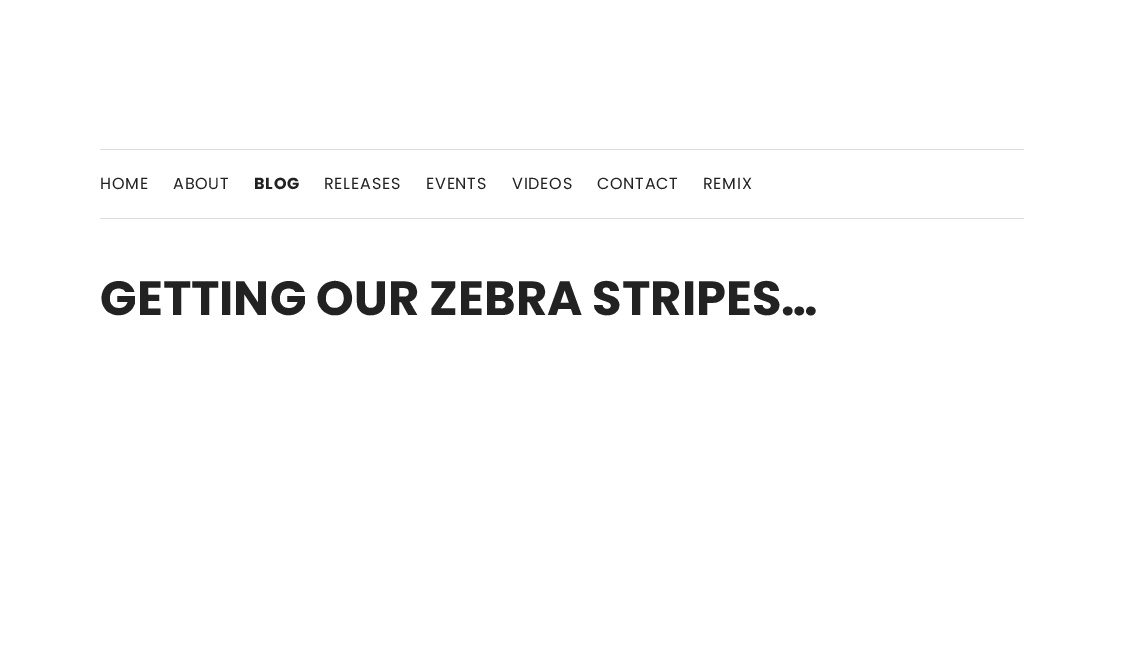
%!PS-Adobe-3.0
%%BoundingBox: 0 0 1124 664
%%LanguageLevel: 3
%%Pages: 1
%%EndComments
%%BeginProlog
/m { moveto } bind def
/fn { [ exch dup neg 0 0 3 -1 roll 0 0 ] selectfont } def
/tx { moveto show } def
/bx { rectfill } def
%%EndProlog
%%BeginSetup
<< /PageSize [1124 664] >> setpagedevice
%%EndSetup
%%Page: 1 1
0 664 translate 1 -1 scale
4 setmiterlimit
1 setgray
0 0 1124 664 bx
0.871 setgray
100 218 924 1 bx
100 149 924 1 bx
/Poppins-Regular 16 fn
0.133 setgray
100 189 m 0.75 0 (HOME) ashow
173 189 m 0.75 0 (ABOUT) ashow
/Poppins-Bold 16 fn
254 189 m 0.75 0 (BLOG) ashow
/Poppins-Regular 16 fn
324 189 m 0.75 0 (RELEASES) ashow
426 189 m 0.75 0 (EVENTS) ashow
512 189 m 0.75 0 (VIDEOS) ashow
597 189 m 0.75 0 (CONTACT) ashow
703 189 m 0.75 0 (REMIX) ashow
/Poppins-Bold 48 fn
(GETTING OUR ZEBRA STRIPES…) 100 315 tx
showpage
%%EOF
